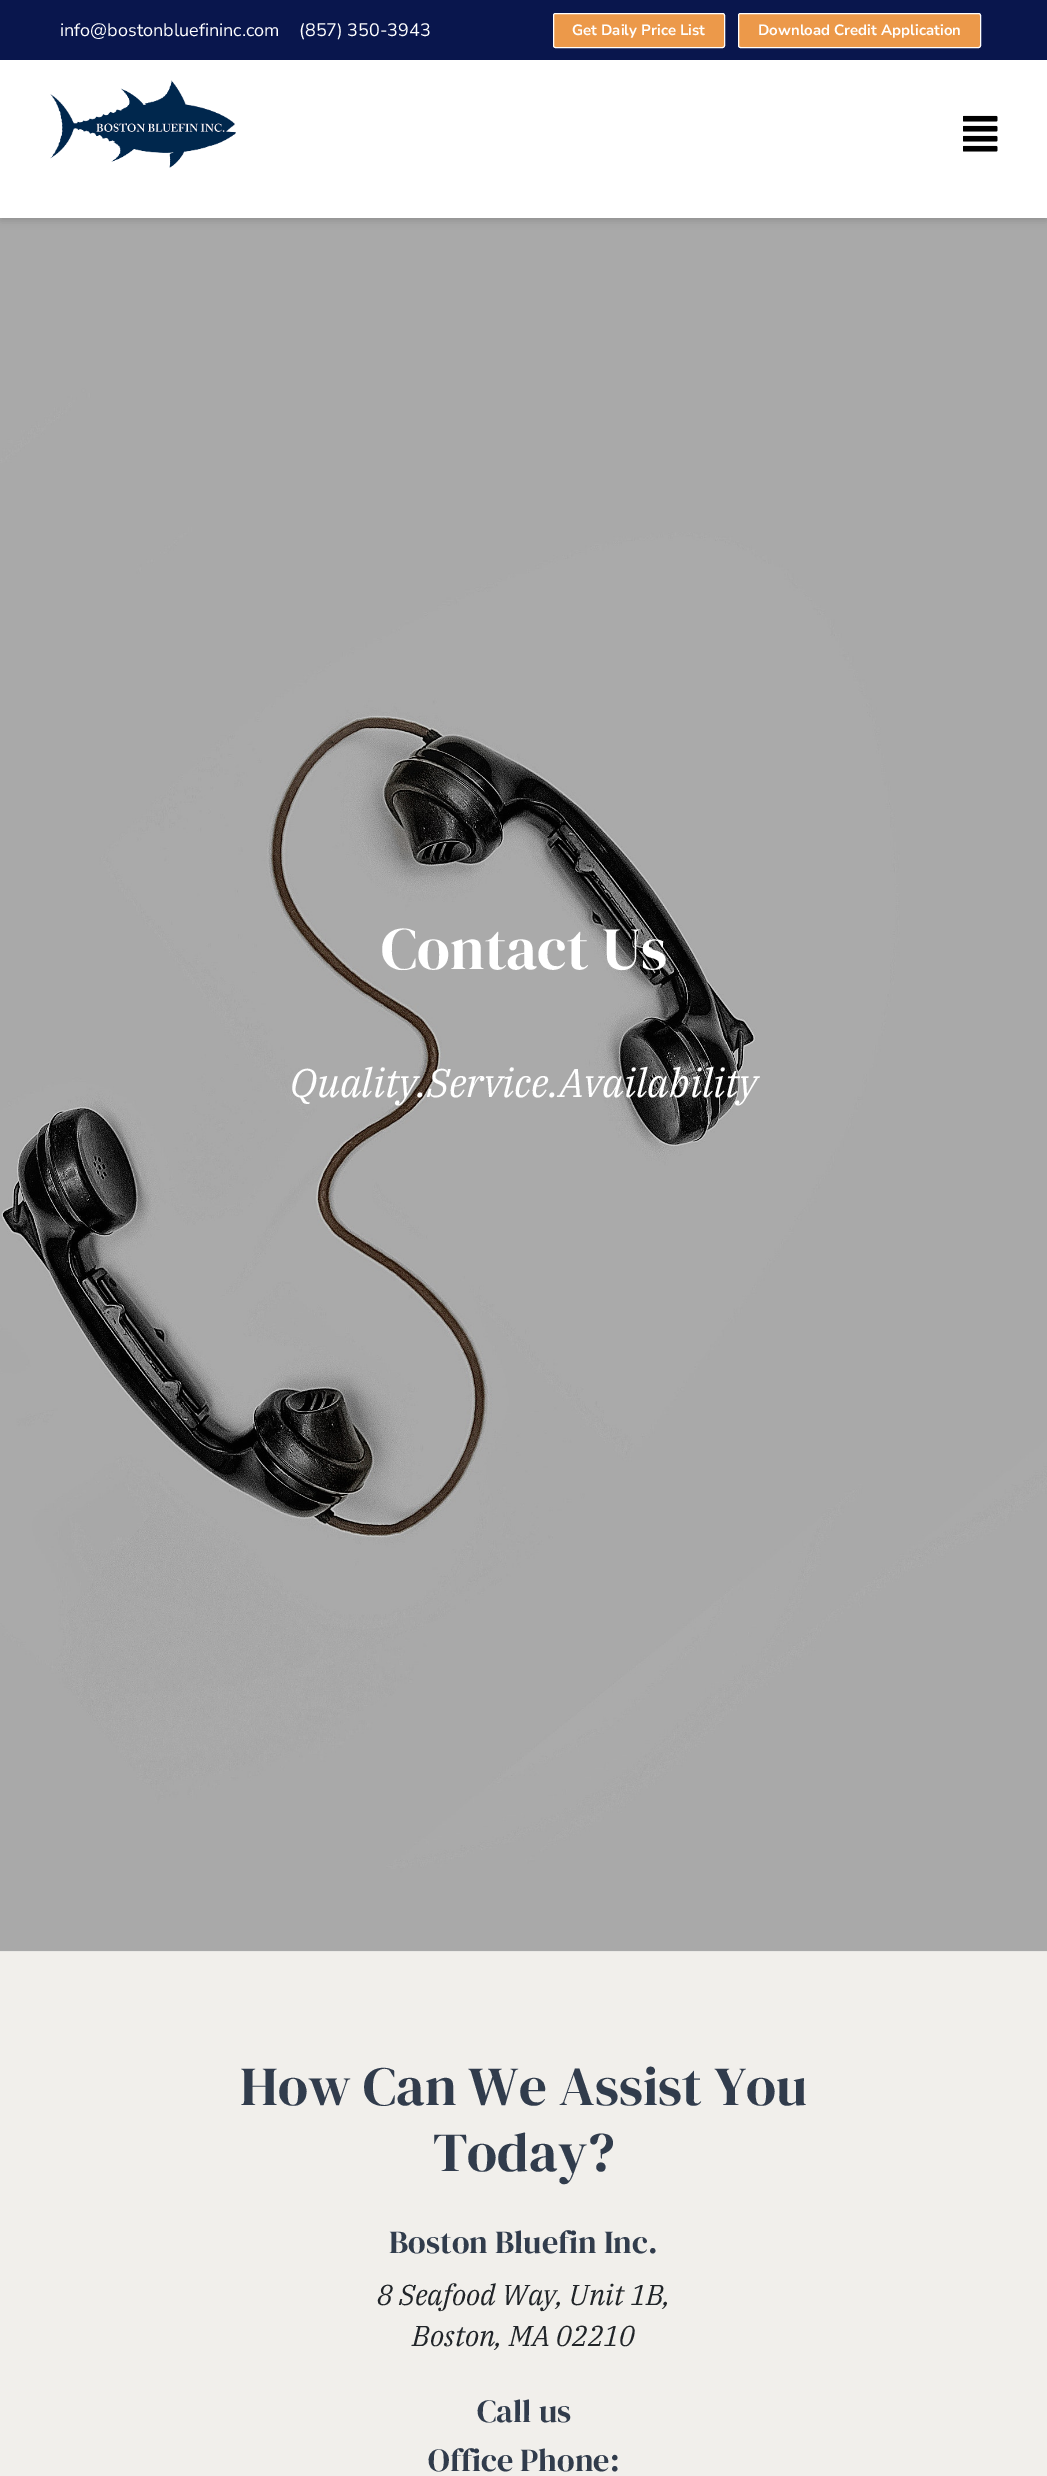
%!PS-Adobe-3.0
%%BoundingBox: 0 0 1047 2476
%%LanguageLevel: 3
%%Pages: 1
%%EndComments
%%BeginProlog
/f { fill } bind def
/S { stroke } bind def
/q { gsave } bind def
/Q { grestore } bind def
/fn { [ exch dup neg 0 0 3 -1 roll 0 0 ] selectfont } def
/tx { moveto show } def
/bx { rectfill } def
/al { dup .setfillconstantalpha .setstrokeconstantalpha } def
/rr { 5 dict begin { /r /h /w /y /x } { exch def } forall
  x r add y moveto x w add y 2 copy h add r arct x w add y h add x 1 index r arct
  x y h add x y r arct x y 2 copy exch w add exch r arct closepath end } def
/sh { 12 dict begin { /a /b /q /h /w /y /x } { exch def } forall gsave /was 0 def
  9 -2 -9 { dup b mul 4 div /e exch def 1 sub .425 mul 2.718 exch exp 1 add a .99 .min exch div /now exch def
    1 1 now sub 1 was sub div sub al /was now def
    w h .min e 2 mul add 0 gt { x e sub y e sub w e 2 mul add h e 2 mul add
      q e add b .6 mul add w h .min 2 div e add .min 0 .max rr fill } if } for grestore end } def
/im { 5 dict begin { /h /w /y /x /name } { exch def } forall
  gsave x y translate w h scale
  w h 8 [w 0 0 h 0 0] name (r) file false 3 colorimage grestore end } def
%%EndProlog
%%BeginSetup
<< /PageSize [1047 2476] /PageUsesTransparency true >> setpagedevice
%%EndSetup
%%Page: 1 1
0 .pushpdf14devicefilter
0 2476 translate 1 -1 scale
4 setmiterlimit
0.945 0.937 0.922 setrgbcolor
0 0 1047 2476 bx
(image2.raw) 0 218 1047 1734 im
0 setgray
1 4 1045 215 0 2.5 0.06 sh
1 6 1045 215 0 4 0.1 sh
1 setgray
0 60 1047 158 bx
0.035 0.086 0.302 setrgbcolor
0 0 1047 60 bx
/NunitoSans-Regular 18 fn
1 setgray
(info@bostonbluefininc.com) 60 36 tx
(\(857\) 350-3943) 299 36 tx
0.925 0.6 0.29 setrgbcolor
553.5 13.5 171 34 2 rr q f Q
1 setgray
S
/NunitoSans-Bold 15 fn
(Get Daily Price List) 572 35 tx
0.925 0.6 0.29 setrgbcolor
738.5 13.5 242 34 2 rr q f Q
1 setgray
S
(Download Credit Application) 758 35 tx
(image0.raw) 50 80 186 88 im
(image1.raw) 963 115 35 37 im
/DMSerifDisplay-Regular 60 fn
(Contact Us) 381 969 tx
/IBMPlexSerif-Italic 40 fn
(Quality.Service.Availability) 290 1097 tx
/DMSerifDisplay-Regular 55 fn
0.192 0.235 0.298 setrgbcolor
(How Can We Assist You) 240 2105 tx
(Today?) 433 2171 tx
/DMSerifDisplay-Regular 32.25 fn
(Boston Bluefin Inc.) 389 2253 tx
/IBMPlexSerif-Italic 28.75 fn
0.129 0.145 0.161 setrgbcolor
(8 Seafood Way, Unit 1B,) 377 2305 tx
(Boston, MA 02210) 412 2346 tx
/DMSerifDisplay-Regular 32.25 fn
0.192 0.235 0.298 setrgbcolor
(Call us) 477 2422 tx
(Office Phone:) 428 2471 tx
.poppdf14devicefilter showpage
%%EOF
